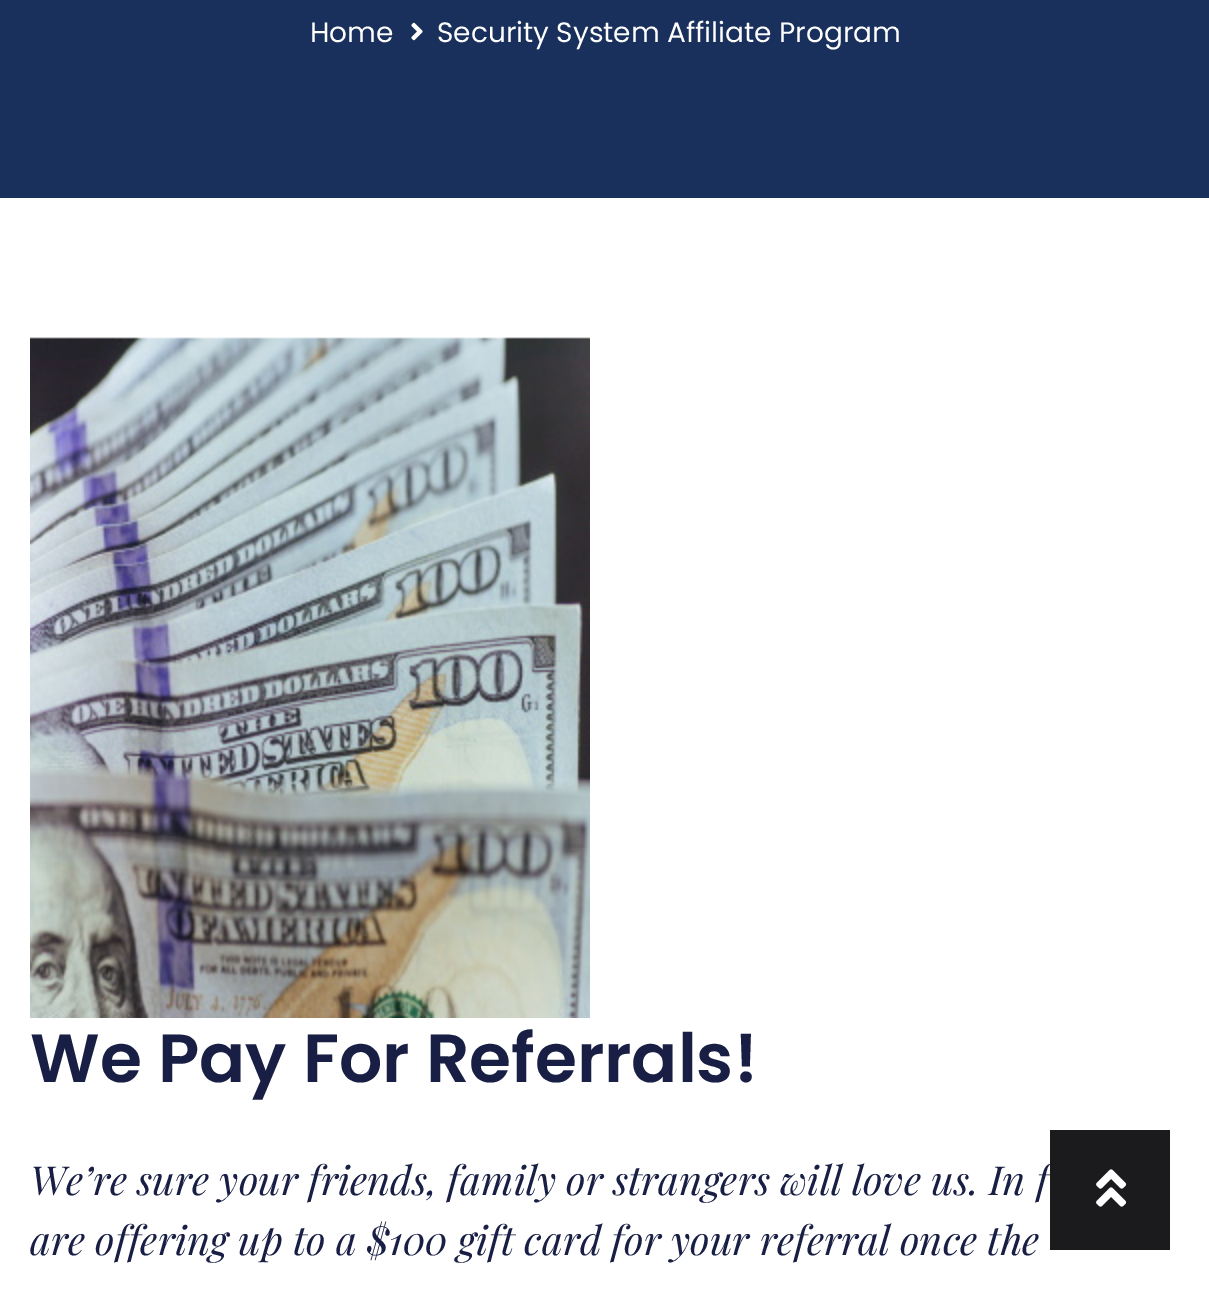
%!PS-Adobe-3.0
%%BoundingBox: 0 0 1209 1289
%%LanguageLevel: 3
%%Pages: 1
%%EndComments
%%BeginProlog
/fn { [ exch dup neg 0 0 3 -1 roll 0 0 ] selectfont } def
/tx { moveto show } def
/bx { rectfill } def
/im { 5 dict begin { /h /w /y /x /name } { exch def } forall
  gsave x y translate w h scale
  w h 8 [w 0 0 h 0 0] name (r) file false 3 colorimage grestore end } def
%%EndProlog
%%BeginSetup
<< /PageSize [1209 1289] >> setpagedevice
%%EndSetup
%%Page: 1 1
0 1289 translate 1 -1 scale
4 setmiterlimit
1 setgray
0 0 1209 1289 bx
0.098 0.188 0.361 setrgbcolor
0 0 1209 198 bx
/Poppins-Regular 28 fn
1 setgray
(Home) 310 42 tx
(image0.raw) 411 22 12 19 im
(Security System Affiliate Program) 437 42 tx
(image1.raw) 30 337 560 681 im
/Poppins-SemiBold 68 fn
0.094 0.118 0.267 setrgbcolor
(We Pay For Referrals!) 30 1082 tx
/PlayfairDisplay-Italic 40 fn
(We’re sure your friends, family or strangers will love us. In f) 30 1195 tx
(are offering up to a $100 gift card for your referral once the) 30 1255 tx
0.106 0.102 0.11 setrgbcolor
1050 1130 120 120 bx
(image2.raw) 1096 1169 31 38 im
showpage
%%EOF
